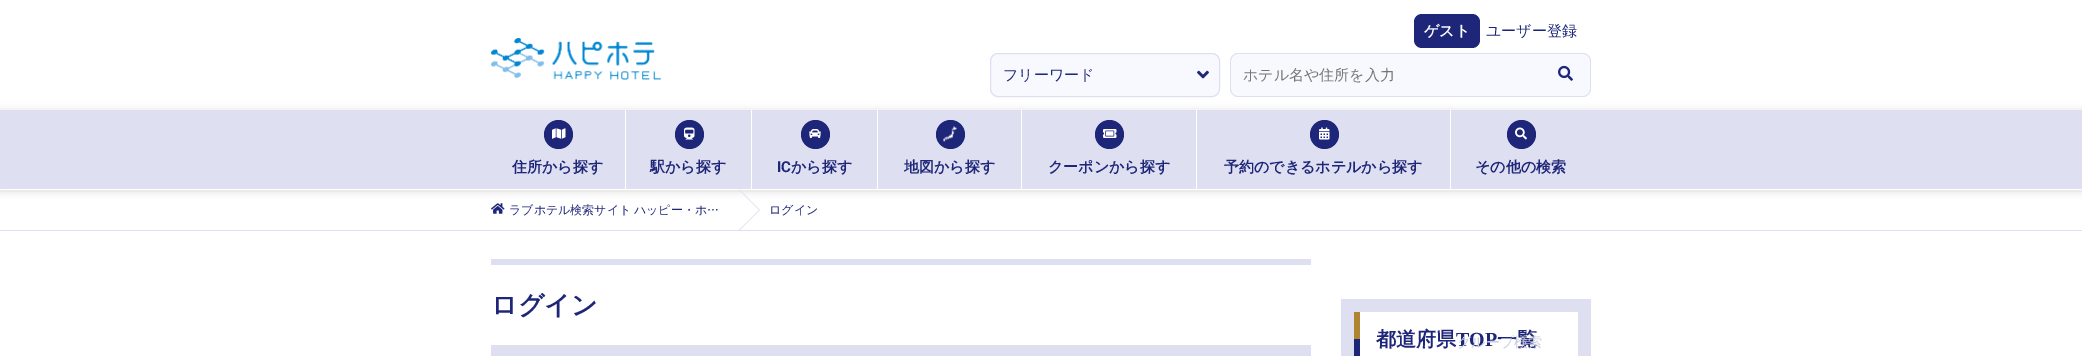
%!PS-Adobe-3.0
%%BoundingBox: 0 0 2082 356
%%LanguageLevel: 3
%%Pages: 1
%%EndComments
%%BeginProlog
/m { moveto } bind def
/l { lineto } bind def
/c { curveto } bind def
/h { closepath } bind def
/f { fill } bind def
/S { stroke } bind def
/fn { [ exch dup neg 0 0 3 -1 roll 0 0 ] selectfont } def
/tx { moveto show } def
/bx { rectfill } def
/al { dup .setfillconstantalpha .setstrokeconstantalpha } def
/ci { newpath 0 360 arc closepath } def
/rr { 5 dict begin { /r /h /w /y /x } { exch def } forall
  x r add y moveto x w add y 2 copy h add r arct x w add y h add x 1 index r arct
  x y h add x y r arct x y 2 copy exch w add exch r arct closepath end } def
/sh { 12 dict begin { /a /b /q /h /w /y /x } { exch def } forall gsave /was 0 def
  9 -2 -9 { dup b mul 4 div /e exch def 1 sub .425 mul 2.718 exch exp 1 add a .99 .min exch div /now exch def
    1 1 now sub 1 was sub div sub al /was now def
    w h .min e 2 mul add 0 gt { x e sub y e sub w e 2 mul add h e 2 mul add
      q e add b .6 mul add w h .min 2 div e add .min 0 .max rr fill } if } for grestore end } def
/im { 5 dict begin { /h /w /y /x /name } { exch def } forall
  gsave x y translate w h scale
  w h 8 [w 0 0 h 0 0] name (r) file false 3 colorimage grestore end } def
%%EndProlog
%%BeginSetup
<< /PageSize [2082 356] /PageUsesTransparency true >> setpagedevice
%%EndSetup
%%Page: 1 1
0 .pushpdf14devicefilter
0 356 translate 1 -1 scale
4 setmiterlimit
1 setgray
0 0 2082 356 bx
0.118 0.149 0.475 setrgbcolor
1414 14 66 34 8 rr f
/WenQuanYiZenHei-Bold 15 fn
1 setgray
(ゲスト) 1424 36 tx
/WenQuanYiZenHei-Medium 15 fn
0.118 0.149 0.475 setrgbcolor
(ユーザー登録) 1486 36 tx
(image0.raw) 491 38 170 42 im
0.973 0.976 1 setrgbcolor
990 53 230 44 8 rr f
(image1.raw) 1197 70 12 9 im
0.871 0.875 0.941 setrgbcolor
990.5 53.5 229 43 7.5 rr S
0.118 0.149 0.475 setrgbcolor
(フリーワード) 1003 80 tx
0.973 0.976 1 setrgbcolor
1238 53 m 1540 53 l 1540 97 l 1238 97 l 1233.5 97 1230 93.5 1230 89 c 1230 61 l 1230 56.5 1233.5 53 1238 53 c h f
0.871 0.875 0.941 setrgbcolor
1238 53 m 1540 53 l 1540 97 l 1238 97 l 1234 97 1230 93 1230 89 c 1230 61 l 1230 57 1234 53 1238 53 c h 1238 54 m 1540 54 l 1540 96 l 1238 96 l 1234 96 1231 93 1231 89 c 1231 61 l 1231 57 1234 54 1238 54 c h eofill
0.459 setgray
(ホテル名や住所を入力) 1243 80 tx
0.973 0.976 1 setrgbcolor
1540 53 m 1583 53 l 1587.5 53 1591 56.5 1591 61 c 1591 89 l 1591 93.5 1587.5 97 1583 97 c 1540 97 l h f
0.871 0.875 0.941 setrgbcolor
1540 53 m 1583 53 l 1587 53 1591 57 1591 61 c 1591 89 l 1591 93 1587 97 1583 97 c 1540 97 l h 1540 54 m 1583 54 l 1587 54 1590 57 1590 61 c 1590 89 l 1590 93 1587 96 1583 96 c 1540 96 l h eofill
(image2.raw) 1558 65 15 16 im
0 setgray
0 111 2082 80 0 4 0.15 sh
0.871 0.875 0.941 setrgbcolor
0 110 2082 79 bx
1 setgray
0 189 2082 1 bx
625 110 1 79 bx
0.118 0.149 0.475 setrgbcolor
558.5 134.5 14.5 ci f
(image3.raw) 552 128 14 11 im
/WenQuanYiZenHei-Bold 15 fn
(住所から探す) 512 172 tx
1 setgray
751 110 1 79 bx
0.118 0.149 0.475 setrgbcolor
689.5 134.5 14.5 ci f
(image4.raw) 684 127 11 13 im
(駅から探す) 650 172 tx
1 setgray
877 110 1 79 bx
0.118 0.149 0.475 setrgbcolor
815.5 134.5 14.5 ci f
(image5.raw) 809 129 12 9 im
/Roboto-Bold 15 fn
(IC) 777 172 tx
/WenQuanYiZenHei-Bold 15 fn
(から探す) 791 172 tx
1 setgray
1021 110 1 79 bx
0.118 0.149 0.475 setrgbcolor
950.5 134.5 14.5 ci f
(image6.raw) 943 126 14 16 im
(地図から探す) 904 172 tx
1 setgray
1196 110 1 79 bx
0.118 0.149 0.475 setrgbcolor
1109.5 134.5 14.5 ci f
(image7.raw) 1103 129 14 9 im
(クーポンから探す) 1048 172 tx
1 setgray
1450 110 1 79 bx
0.118 0.149 0.475 setrgbcolor
1324.5 134.5 14.5 ci f
(image8.raw) 1319 127 11 13 im
(予約のできるホテルから探す) 1224 172 tx
1521.5 134.5 14.5 ci f
(image9.raw) 1515 127 12 13 im
(その他の検索) 1475 172 tx
0.871 0.875 0.941 setrgbcolor
1341 299 250 57 bx
1 setgray
1360 312 218 44 bx
/LiberationSerif-Bold 20 fn
0.118 0.149 0.475 setrgbcolor
(TOP) 1456 346 tx
/WenQuanYiZenHei-Bold 20 fn
(一覧) 1497 346 tx
/WenQuanYiZenHei-Medium 14 fn
0.792 0.8 0.875 setrgbcolor
(グループ検索) 1457 347 tx
0.871 0.875 0.941 setrgbcolor
0 230 2082 1 bx
(image10.raw) 491 203 14 11 im
/WenQuanYiZenHei-Medium 12 fn
0.118 0.149 0.475 setrgbcolor
509 214 m -1 0 32 (ラブホテル検索サイト ハッピー・ホ…) widthshow
0.871 0.875 0.941 setrgbcolor
739 189 m 760 210 l 759 210 l 739 190 l h 760 210 m 739 231 l 739 230 l 759 210 l h f
0.118 0.149 0.475 setrgbcolor
(ログイン) 769 214 tx
0.871 0.875 0.941 setrgbcolor
491 259 820 6 bx
/WenQuanYiZenHei-Bold 26 fn
0.118 0.149 0.475 setrgbcolor
(ログイン) 491 314 tx
0.871 0.875 0.941 setrgbcolor
491 345 820 11 bx
0.118 0.149 0.475 setrgbcolor
1354 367 m 1354 312 l 1360 312 l 1360 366 l h f
0.686 0.518 0.196 setrgbcolor
1354 312 6 27 bx
/WenQuanYiZenHei-Bold 20 fn
0.118 0.149 0.475 setrgbcolor
(都道府県) 1376 346 tx
.poppdf14devicefilter showpage
%%EOF
